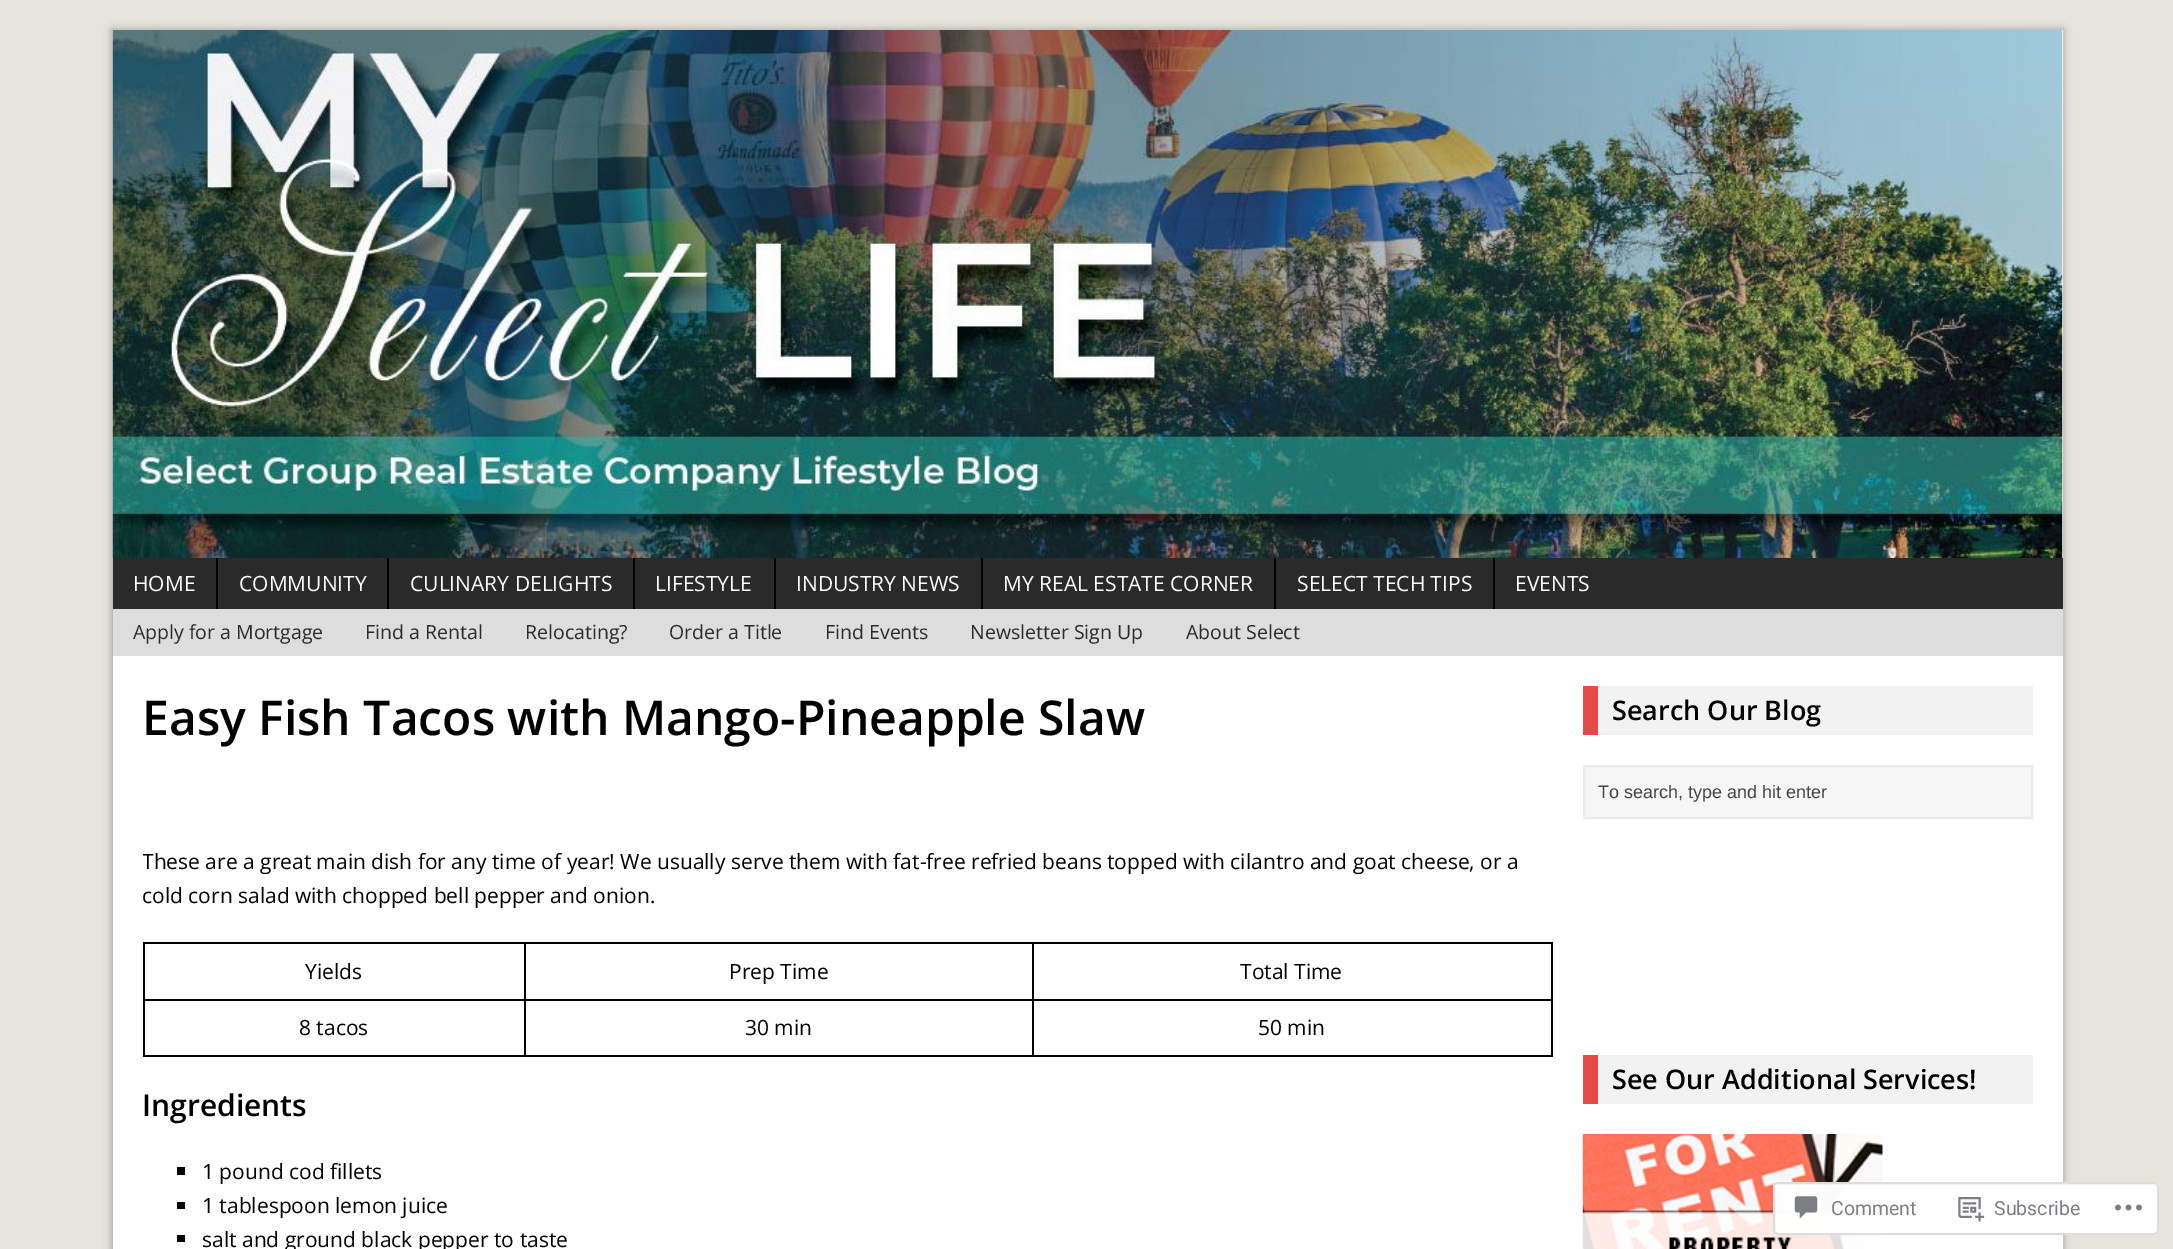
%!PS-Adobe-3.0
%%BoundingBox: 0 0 2173 1249
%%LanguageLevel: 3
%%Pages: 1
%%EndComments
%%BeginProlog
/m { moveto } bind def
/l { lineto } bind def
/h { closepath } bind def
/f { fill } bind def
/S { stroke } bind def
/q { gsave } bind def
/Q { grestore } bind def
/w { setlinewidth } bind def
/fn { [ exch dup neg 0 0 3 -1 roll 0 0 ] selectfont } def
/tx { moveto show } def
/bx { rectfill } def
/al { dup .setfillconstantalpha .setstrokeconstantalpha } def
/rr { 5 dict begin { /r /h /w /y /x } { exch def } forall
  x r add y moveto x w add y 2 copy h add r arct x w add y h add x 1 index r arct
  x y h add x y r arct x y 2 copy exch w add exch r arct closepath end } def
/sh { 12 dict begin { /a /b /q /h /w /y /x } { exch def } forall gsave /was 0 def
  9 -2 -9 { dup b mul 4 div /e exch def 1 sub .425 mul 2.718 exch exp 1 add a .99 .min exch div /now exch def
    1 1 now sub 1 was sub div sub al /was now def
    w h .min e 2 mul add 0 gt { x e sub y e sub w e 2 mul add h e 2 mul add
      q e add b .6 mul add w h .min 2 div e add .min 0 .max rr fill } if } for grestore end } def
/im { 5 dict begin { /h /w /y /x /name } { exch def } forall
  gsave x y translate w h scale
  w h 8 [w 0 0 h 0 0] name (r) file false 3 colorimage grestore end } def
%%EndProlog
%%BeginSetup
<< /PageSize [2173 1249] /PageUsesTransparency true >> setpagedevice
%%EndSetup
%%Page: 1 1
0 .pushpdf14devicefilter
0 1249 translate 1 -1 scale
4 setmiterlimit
0.906 0.894 0.859 setrgbcolor
0 0 2173 1249 bx
0.659 setgray
111 29 1953 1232 0 4 1 sh
1 setgray
2062 30 1 528 bx
(image0.raw) 112 30 1951 528 im
0.165 setgray
113 558 1950 51 bx
/OpenSans-Regular 21 fn
1 setgray
(HOME) 133 591 tx
0 setgray
216 558 2 51 bx
1 setgray
(COMMUNITY) 239 591 tx
0 setgray
387 558 2 51 bx
1 setgray
(CULINARY DELIGHTS) 410 591 tx
0 setgray
633 558 2 51 bx
1 setgray
(LIFESTYLE) 655 591 tx
0 setgray
774 558 2 51 bx
1 setgray
(INDUSTRY NEWS) 796 591 tx
0 setgray
981 558 2 51 bx
1 setgray
(MY REAL ESTATE CORNER) 1003 591 tx
0 setgray
1274 558 2 51 bx
1 setgray
(SELECT TECH TIPS) 1297 591 tx
0 setgray
1493 558 2 51 bx
1 setgray
(EVENTS) 1515 591 tx
0.867 setgray
113 609 1950 47 bx
/OpenSans-Regular 19.5 fn
0.165 setgray
(Apply for a Mortgage) 133 639 tx
(Find a Rental) 365 639 tx
(Relocating?) 525 639 tx
(Order a Title) 669 639 tx
(Find Events) 825 639 tx
(Newsletter Sign Up) 970 639 tx
(About Select) 1186 639 tx
1 setgray
113 656 1950 593 bx
/OpenSans-SemiBold 48 fn
0 setgray
(Easy Fish Tacos with Mango-Pineapple Slaw) 142 735 tx
q
143 686 1410 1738 rectclip
/OpenSans-Regular 21 fn
(These are a great main dish for any time of year! We usually serve them with fat-free refried beans topped with cilantro and goat cheese, or a) 142 869 tx
Q
/OpenSans-Regular 21 fn
(cold corn salad with chopped bell pepper and onion.) 142 903 tx
1032 942 521 2 bx
1032 999 521 2 bx
1551 999 2 57 bx
1032 1055 521 2 bx
1032 999 2 57 bx
524 999 510 2 bx
1032 942 2 59 bx
524 942 510 2 bx
524 1055 510 2 bx
524 999 2 57 bx
143 999 382 2 bx
524 942 2 59 bx
143 942 382 2 bx
143 1055 382 2 bx
143 999 2 57 bx
143 942 2 59 bx
(Yields) 305 979 tx
(Prep Time) 729 979 tx
1551 942 2 59 bx
(Total Time) 1240 979 tx
(8 tacos) 299 1035 tx
(30 min) 745 1035 tx
(50 min) 1258 1035 tx
/OpenSans-SemiBold 30 fn
(Ingredients) 142 1116 tx
177 1167 8 8 bx
/OpenSans-Regular 21 fn
(1 pound cod fillets) 202 1179 tx
177 1202 8 7 bx
(1 tablespoon lemon juice) 202 1213 tx
177 1235 8 7 bx
(salt and ground black pepper to taste) 202 1247 tx
0.949 setgray
1598 686 435 49 bx
0.902 0.286 0.275 setrgbcolor
1583 686 15 49 bx
/OpenSans-SemiBold 27 fn
0 setgray
(Search Our Blog) 1612 720 tx
0.965 setgray
1584 766 m 2032 766 l 2032 818 l 1584 818 l h q f Q
0.922 setgray
2 w
S
/LiberationSans-Regular 18 fn
0.267 setgray
(To search, type and hit enter) 1598 798 tx
0.949 setgray
1598 1055 435 49 bx
0.902 0.286 0.275 setrgbcolor
1583 1055 15 49 bx
/OpenSans-SemiBold 27 fn
0 setgray
(See Our Additional Services!) 1612 1089 tx
(image1.raw) 1582 1134 301 115 im
0.98 al
1 setgray
1773 1182 386 53 5 rr f
0.863 0.863 0.871 setrgbcolor
1774 1183 384 51 4 rr S
1 al
(image2.raw) 1794 1196 24 23 im
/Roboto-Regular 19.5 fn
0.482 0.498 0.518 setrgbcolor
(Comment) 1831 1215 tx
(image3.raw) 1958 1197 27 25 im
(Subscribe) 1994 1215 tx
(image4.raw) 2115 1204 27 7 im
.poppdf14devicefilter showpage
%%EOF
